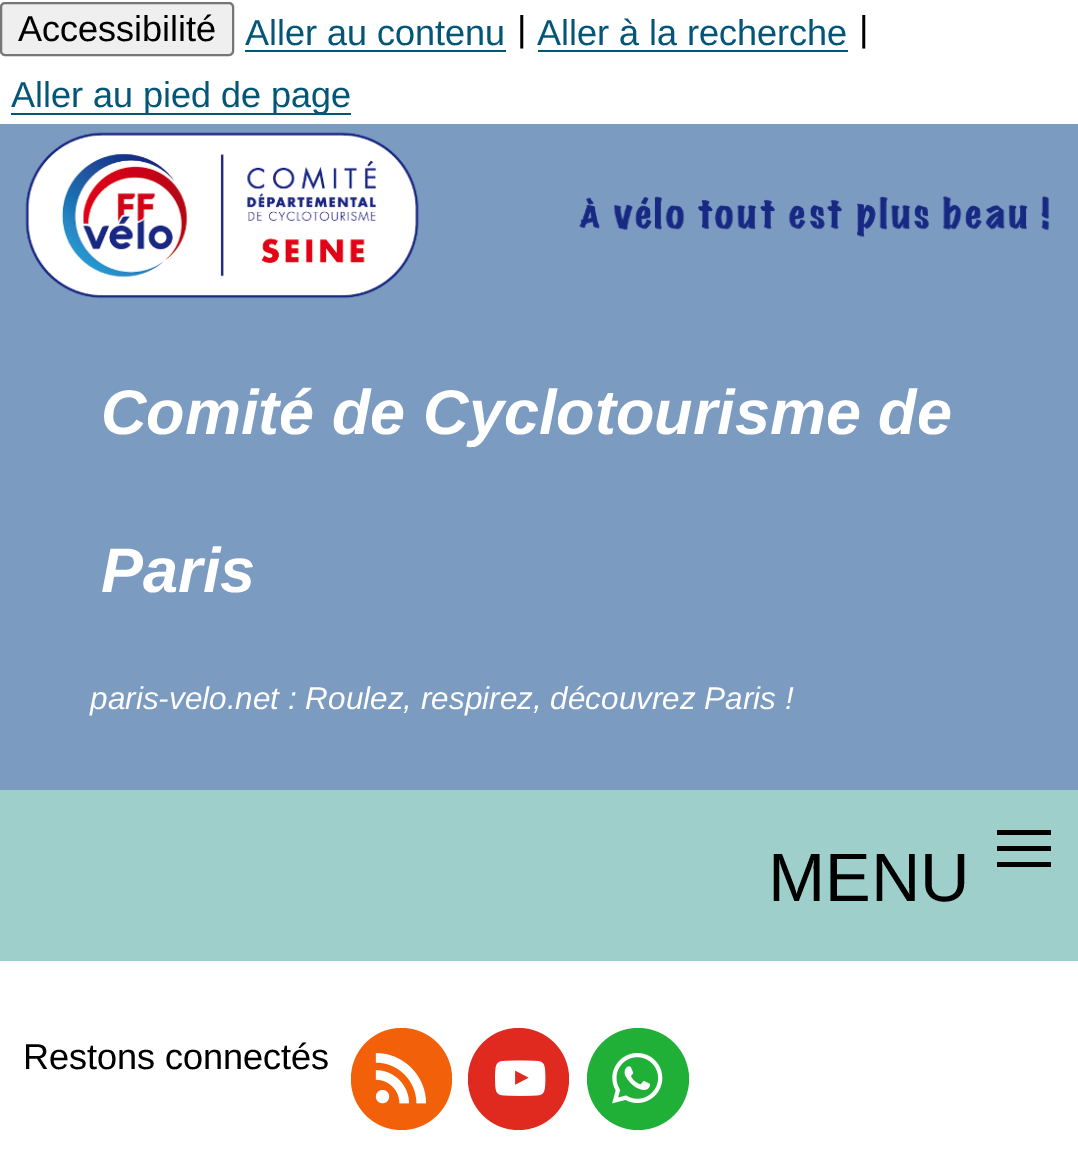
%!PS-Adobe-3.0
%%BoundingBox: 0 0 1078 1155
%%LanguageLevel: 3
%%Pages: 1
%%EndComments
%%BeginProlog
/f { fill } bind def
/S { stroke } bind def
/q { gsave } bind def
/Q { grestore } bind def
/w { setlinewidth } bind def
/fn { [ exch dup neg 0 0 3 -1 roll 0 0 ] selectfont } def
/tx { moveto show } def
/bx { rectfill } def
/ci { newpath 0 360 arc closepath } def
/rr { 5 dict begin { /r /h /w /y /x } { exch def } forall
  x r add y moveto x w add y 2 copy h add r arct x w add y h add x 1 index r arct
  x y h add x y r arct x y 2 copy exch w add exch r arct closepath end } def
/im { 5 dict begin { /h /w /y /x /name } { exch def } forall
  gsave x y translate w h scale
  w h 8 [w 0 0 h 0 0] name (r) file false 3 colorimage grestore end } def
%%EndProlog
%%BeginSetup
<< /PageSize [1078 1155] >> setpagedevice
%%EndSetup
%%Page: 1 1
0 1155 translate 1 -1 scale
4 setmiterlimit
1 setgray
0 0 1078 1155 bx
0.486 0.608 0.753 setrgbcolor
0 124 1078 666 bx
0.937 setgray
1 3 232 52 4 rr q f Q
0.463 setgray
2 w
S
/LiberationSans-Regular 36 fn
0 setgray
(Accessibilité) 18 41 tx
0.016 0.337 0.471 setrgbcolor
(Aller au contenu) 245 45 tx
245 50 261 2 bx
0 setgray
(|) 517 41 tx
0.016 0.337 0.471 setrgbcolor
(Aller à la recherche) 537 45 tx
538 50 310 2 bx
0 setgray
(|) 859 41 tx
0.016 0.337 0.471 setrgbcolor
11 113 340 2 bx
(Aller au pied de page) 11 107 tx
(image0.raw) 25 132 1025 167 im
/LiberationSans-BoldItalic 63 fn
1 setgray
(Comité de Cyclotourisme de) 101 434 tx
(Paris) 101 592 tx
/LiberationSans-Italic 31.5 fn
(paris-velo.net : Roulez, respirez, découvrez Paris !) 90 709 tx
0.624 0.812 0.792 setrgbcolor
0 790 1078 171 bx
0 setgray
997 846 54 5 bx
997 830 54 5 bx
997 862 54 5 bx
/LiberationSans-Regular 68.5 fn
(MENU) 768 901 tx
/LiberationSans-Regular 36 fn
(Restons connectés) 23 1069 tx
0.949 0.38 0.035 setrgbcolor
351 1028 101 102 50.5 rr f
(image1.raw) 375 1053 51 51 im
0.878 0.165 0.125 setrgbcolor
468 1028 101 102 50.5 rr f
(image2.raw) 495 1060 51 36 im
0.125 0.69 0.22 setrgbcolor
638 1079 51 ci f
(image3.raw) 612 1053 51 51 im
showpage
%%EOF
